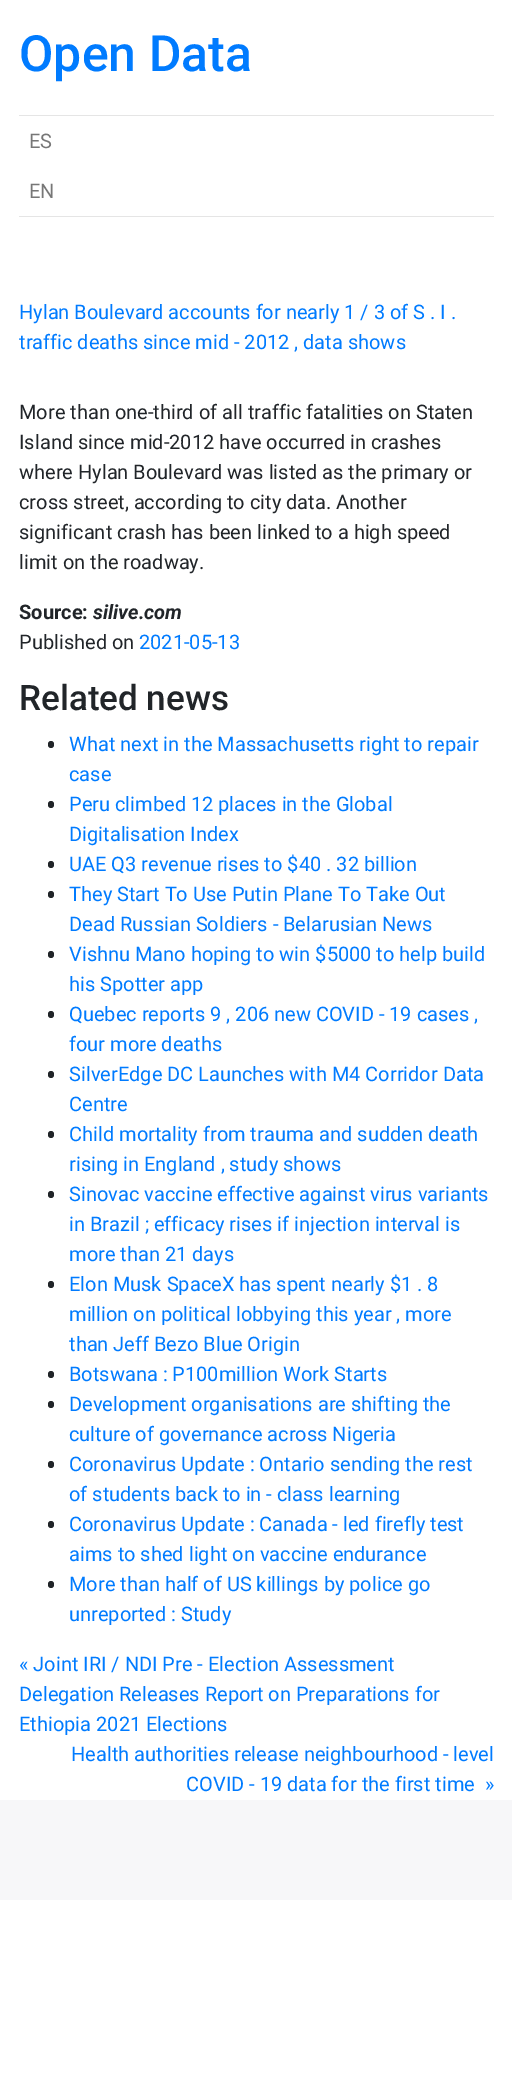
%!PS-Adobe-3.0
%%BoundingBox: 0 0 512 2090
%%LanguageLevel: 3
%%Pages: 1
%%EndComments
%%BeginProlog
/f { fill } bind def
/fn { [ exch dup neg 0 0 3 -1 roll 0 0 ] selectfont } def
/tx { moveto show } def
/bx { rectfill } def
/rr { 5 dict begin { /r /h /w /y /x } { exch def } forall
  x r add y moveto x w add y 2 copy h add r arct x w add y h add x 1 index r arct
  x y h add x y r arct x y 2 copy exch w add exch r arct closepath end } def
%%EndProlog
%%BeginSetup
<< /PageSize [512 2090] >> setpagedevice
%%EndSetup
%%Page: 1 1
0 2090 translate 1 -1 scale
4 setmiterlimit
1 setgray
0 0 512 2090 bx
/Roboto-Medium 50 fn
0 0.482 1 setrgbcolor
(Open Data) 19 71 tx
0.898 setgray
19 115 475 1 bx
19 216 475 1 bx
/Roboto-Regular 20 fn
0.467 setgray
(ES) 29 148 tx
(EN) 29 198 tx
0 0.482 1 setrgbcolor
(Hylan Boulevard accounts for nearly 1 / 3 of S . I .) 19 319 tx
(traffic deaths since mid - 2012 , data shows) 19 349 tx
0.129 0.145 0.161 setrgbcolor
(More than one-third of all traffic fatalities on Staten) 19 419 tx
(Island since mid-2012 have occurred in crashes) 19 449 tx
(where Hylan Boulevard was listed as the primary or) 19 479 tx
(cross street, according to city data. Another) 19 509 tx
(significant crash has been linked to a high speed) 19 539 tx
(limit on the roadway.) 19 569 tx
/Roboto-Bold 20 fn
(Source:) 19 619 tx
/Roboto-BoldItalic 20 fn
(silive.com) 93 619 tx
/Roboto-Regular 20 fn
(Published on) 19 649 tx
0 0.482 1 setrgbcolor
(2021-05-13) 139 649 tx
/Roboto-Medium 35 fn
0.129 0.145 0.161 setrgbcolor
(Related news) 19 710 tx
48 741 6 7 3 rr f
/Roboto-Regular 20 fn
0 0.482 1 setrgbcolor
(What next in the Massachusetts right to repair) 69 751 tx
(case) 69 781 tx
0.129 0.145 0.161 setrgbcolor
48 801 6 7 3 rr f
0 0.482 1 setrgbcolor
(Peru climbed 12 places in the Global) 69 811 tx
(Digitalisation Index) 69 841 tx
0.129 0.145 0.161 setrgbcolor
48 861 6 7 3 rr f
0 0.482 1 setrgbcolor
(UAE Q3 revenue rises to $40 . 32 billion) 69 871 tx
0.129 0.145 0.161 setrgbcolor
48 891 6 7 3 rr f
0 0.482 1 setrgbcolor
(They Start To Use Putin Plane To Take Out) 69 901 tx
(Dead Russian Soldiers - Belarusian News) 69 931 tx
0.129 0.145 0.161 setrgbcolor
48 951 6 7 3 rr f
0 0.482 1 setrgbcolor
(Vishnu Mano hoping to win $5000 to help build) 69 961 tx
(his Spotter app) 69 991 tx
0.129 0.145 0.161 setrgbcolor
48 1011 6 7 3 rr f
0 0.482 1 setrgbcolor
(Quebec reports 9 , 206 new COVID - 19 cases ,) 69 1021 tx
(four more deaths) 69 1051 tx
0.129 0.145 0.161 setrgbcolor
48 1071 6 7 3 rr f
0 0.482 1 setrgbcolor
(SilverEdge DC Launches with M4 Corridor Data) 69 1081 tx
(Centre) 69 1111 tx
0.129 0.145 0.161 setrgbcolor
48 1131 6 7 3 rr f
0 0.482 1 setrgbcolor
(Child mortality from trauma and sudden death) 69 1141 tx
(rising in England , study shows) 69 1171 tx
0.129 0.145 0.161 setrgbcolor
48 1191 6 7 3 rr f
0 0.482 1 setrgbcolor
(Sinovac vaccine effective against virus variants) 69 1201 tx
(in Brazil ; efficacy rises if injection interval is) 69 1231 tx
(more than 21 days) 69 1261 tx
0.129 0.145 0.161 setrgbcolor
48 1281 6 7 3 rr f
0 0.482 1 setrgbcolor
(Elon Musk SpaceX has spent nearly $1 . 8) 69 1291 tx
(million on political lobbying this year , more) 69 1321 tx
(than Jeff Bezo Blue Origin) 69 1351 tx
0.129 0.145 0.161 setrgbcolor
48 1371 6 7 3 rr f
0 0.482 1 setrgbcolor
(Botswana : P100million Work Starts) 69 1381 tx
0.129 0.145 0.161 setrgbcolor
48 1401 6 7 3 rr f
0 0.482 1 setrgbcolor
(Development organisations are shifting the) 69 1411 tx
(culture of governance across Nigeria) 69 1441 tx
0.129 0.145 0.161 setrgbcolor
48 1461 6 7 3 rr f
0 0.482 1 setrgbcolor
(Coronavirus Update : Ontario sending the rest) 69 1471 tx
(of students back to in - class learning) 69 1501 tx
0.129 0.145 0.161 setrgbcolor
48 1521 6 7 3 rr f
0 0.482 1 setrgbcolor
(Coronavirus Update : Canada - led firefly test) 69 1531 tx
(aims to shed light on vaccine endurance) 69 1561 tx
0.129 0.145 0.161 setrgbcolor
48 1581 6 7 3 rr f
0 0.482 1 setrgbcolor
(More than half of US killings by police go) 69 1591 tx
(unreported : Study) 69 1621 tx
(« Joint IRI / NDI Pre - Election Assessment) 19 1671 tx
(Delegation Releases Report on Preparations for) 19 1701 tx
(Ethiopia 2021 Elections) 19 1731 tx
(Health authorities release neighbourhood - level) 71 1761 tx
(COVID - 19 data for the first time  ») 186 1791 tx
0.969 0.969 0.976 setrgbcolor
0 1800 512 100 bx
showpage
%%EOF
